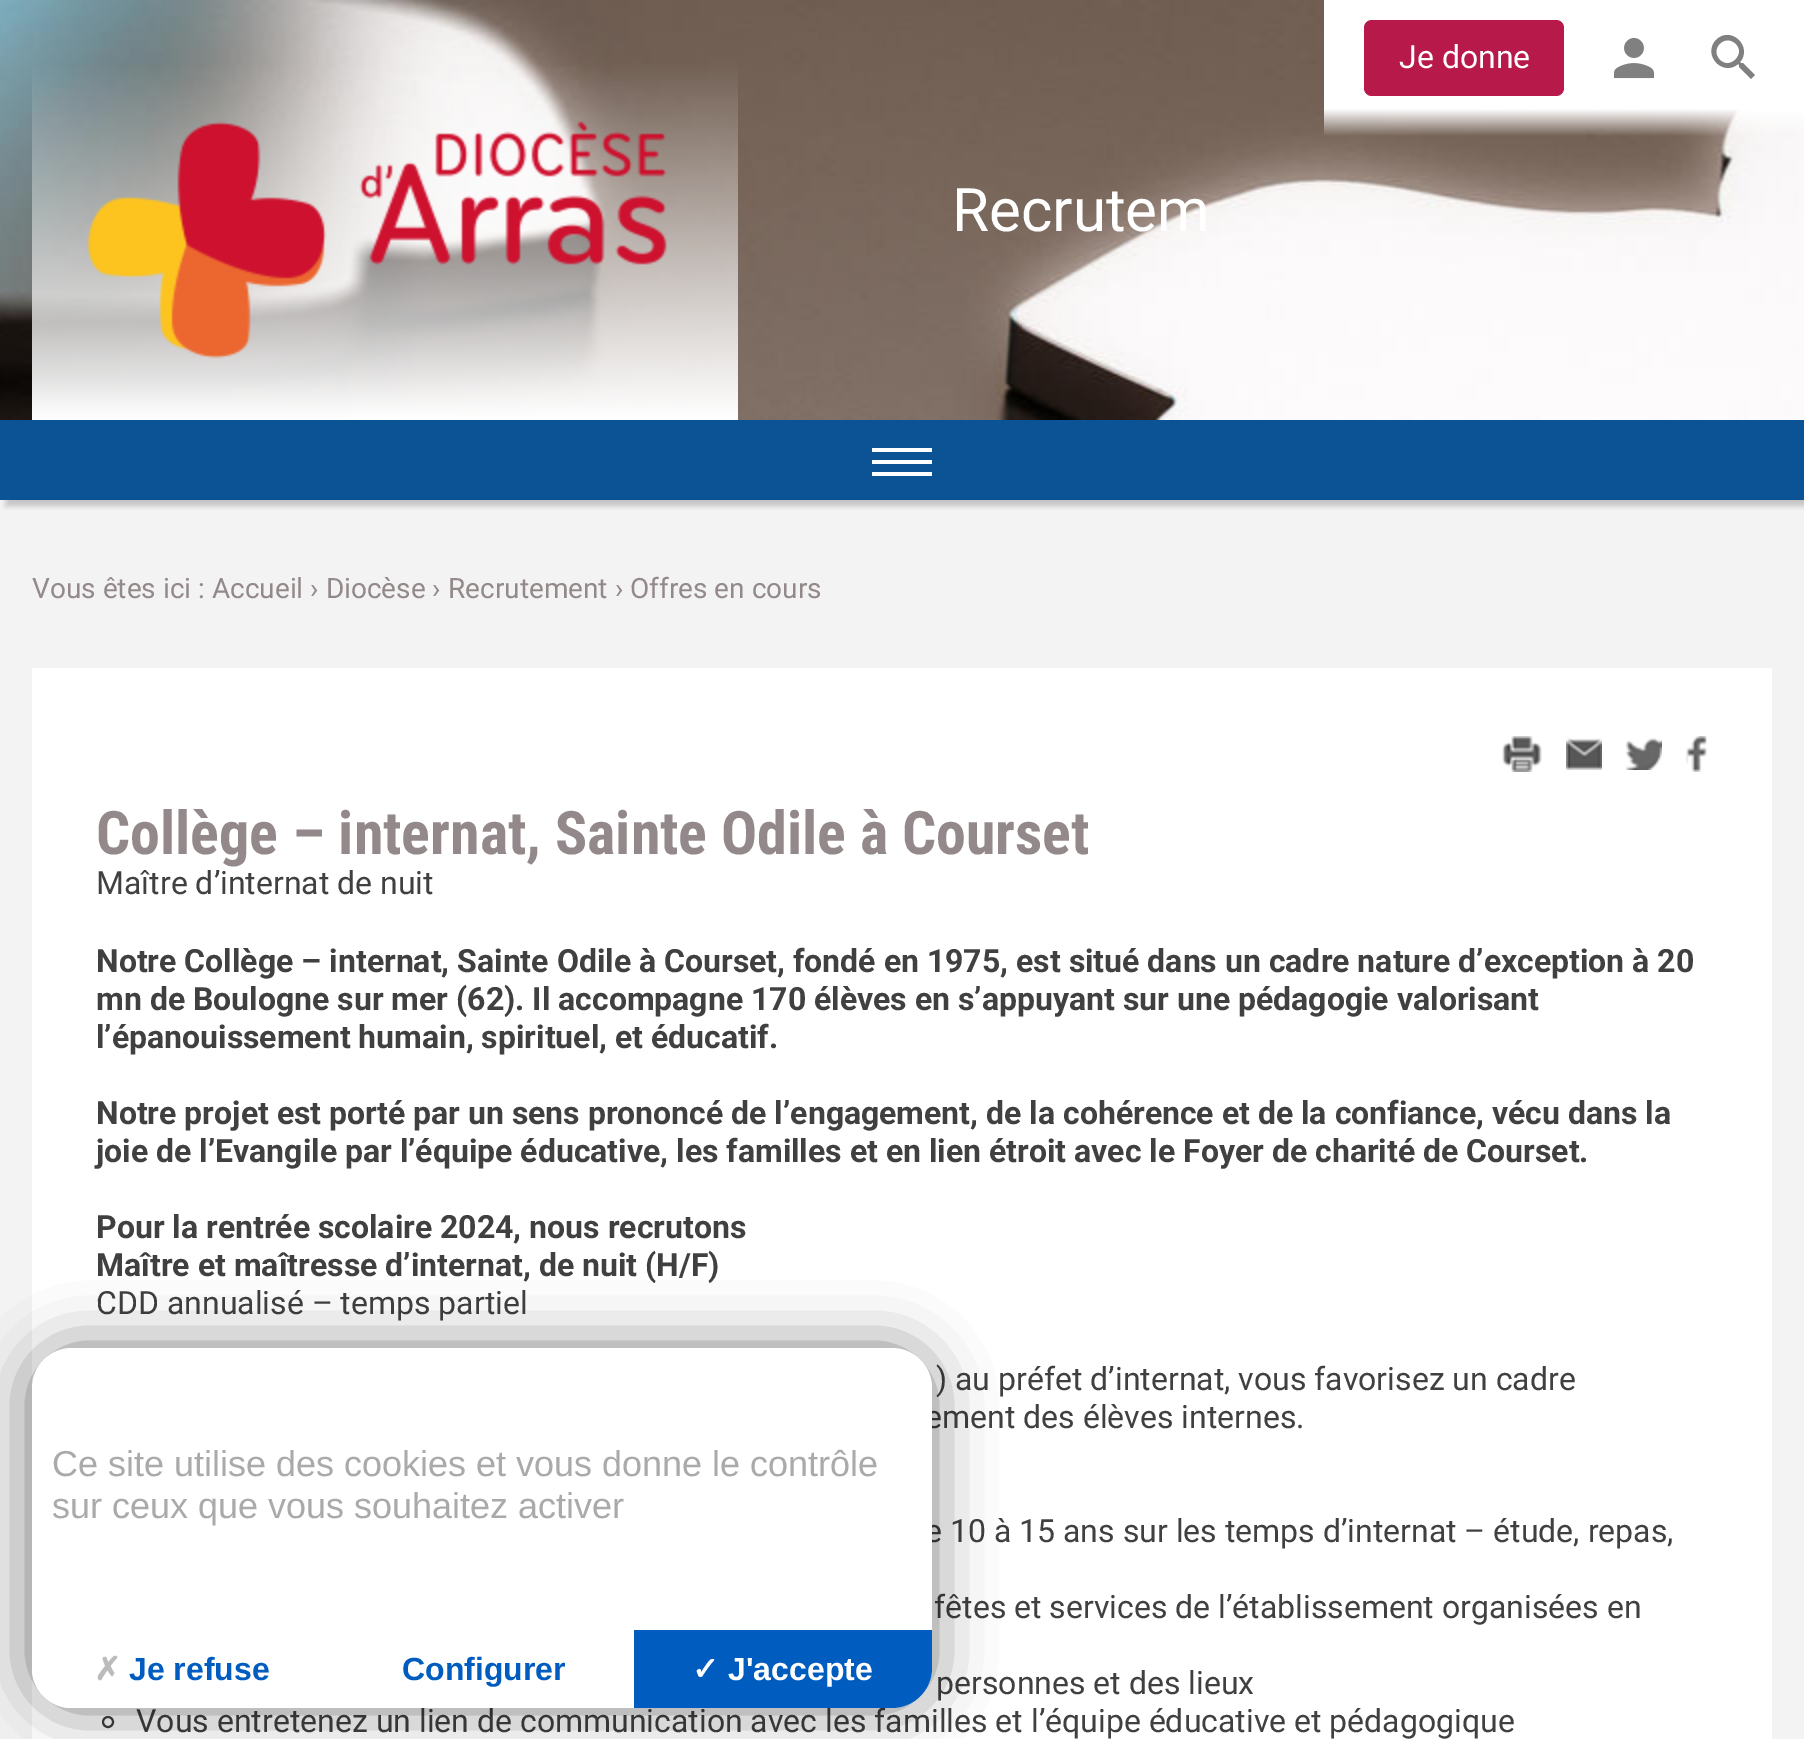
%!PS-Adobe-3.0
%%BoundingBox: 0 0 1804 1739
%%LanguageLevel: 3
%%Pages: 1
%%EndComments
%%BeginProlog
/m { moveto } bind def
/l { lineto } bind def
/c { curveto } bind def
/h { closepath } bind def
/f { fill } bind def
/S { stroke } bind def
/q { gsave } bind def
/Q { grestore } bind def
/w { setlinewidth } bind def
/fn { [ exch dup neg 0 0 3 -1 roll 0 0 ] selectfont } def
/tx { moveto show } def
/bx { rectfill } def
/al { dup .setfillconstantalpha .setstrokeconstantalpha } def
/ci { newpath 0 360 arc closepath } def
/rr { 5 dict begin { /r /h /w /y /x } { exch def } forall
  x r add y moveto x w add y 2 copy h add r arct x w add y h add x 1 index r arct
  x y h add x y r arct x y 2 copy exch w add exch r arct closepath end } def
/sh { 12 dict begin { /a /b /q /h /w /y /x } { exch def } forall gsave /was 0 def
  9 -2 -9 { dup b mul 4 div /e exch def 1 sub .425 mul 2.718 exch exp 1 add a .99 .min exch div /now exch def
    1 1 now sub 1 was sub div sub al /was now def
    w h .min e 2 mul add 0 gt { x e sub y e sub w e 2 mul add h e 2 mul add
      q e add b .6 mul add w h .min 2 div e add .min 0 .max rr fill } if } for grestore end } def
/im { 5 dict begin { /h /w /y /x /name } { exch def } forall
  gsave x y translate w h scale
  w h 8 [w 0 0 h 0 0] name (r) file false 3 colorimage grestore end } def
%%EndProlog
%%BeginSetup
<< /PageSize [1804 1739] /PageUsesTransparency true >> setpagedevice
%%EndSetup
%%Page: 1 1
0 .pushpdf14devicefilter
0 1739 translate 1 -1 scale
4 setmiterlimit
0.953 setgray
0 0 1804 1739 bx
(image0.raw) 0 0 1804 420 im
0.714 0.098 0.29 setrgbcolor
1364 20 200 76 8 rr f
/Roboto-Regular 32 fn
1 setgray
(Je donne) 1399 68 tx
(image1.raw) 1613 38 42 41 im
0.502 setgray
1720 60 m 1730 70 1746 54 1736 44 c 1725 33 1709 49 1720 60 c h 1743 63 m 1755 75 l 1751 79 l 1739 67 l 1739 65 l 1738 64 l 1723 77 1702 55 1716 40 c 1731 25 1753 47 1740 62 c 1741 63 l h f
(image2.raw) 87 121 580 238 im
/Roboto-Regular 60 fn
1 setgray
(Recrutem) 952 231 tx
0.043 0.325 0.58 setrgbcolor
0 420 1804 80 bx
q
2 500 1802 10 rectclip
0 setgray
6 426 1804 80 0 3 0.2 sh
Q
1 setgray
872 460 60 4 bx
872 448 60 4 bx
872 472 60 4 bx
/Roboto-Regular 28 fn
0.576 0.537 0.541 setrgbcolor
(Vous êtes ici : Accueil › Diocèse › Recrutement › Offres en cours) 32 598 tx
1 setgray
32 668 1740 1071 bx
(image3.raw) 1502 736 40 36 im
(image4.raw) 1566 738 36 32 im
(image5.raw) 1626 738 36 32 im
(image6.raw) 1686 736 21 36 im
/RobotoCondensed-Bold 60 fn
0.576 0.537 0.541 setrgbcolor
(Collège – internat, Sainte Odile à Courset) 96 854 tx
/Roboto-Regular 32 fn
0.251 setgray
(Maître d’internat de nuit) 96 894 tx
/Roboto-Bold 32 fn
(Notre Collège – internat, Sainte Odile à Courset, fondé en 1975, est situé dans un cadre nature d’exception à 20) 96 972 tx
(mn de Boulogne sur mer \(62\). Il accompagne 170 élèves en s’appuyant sur une pédagogie valorisant) 96 1010 tx
(l’épanouissement humain, spirituel, et éducatif.) 96 1048 tx
(Notre projet est porté par un sens prononcé de l’engagement, de la cohérence et de la confiance, vécu dans la) 96 1124 tx
(joie de l’Evangile par l’équipe éducative, les familles et en lien étroit avec le Foyer de charité de Courset.) 96 1162 tx
(Pour la rentrée scolaire 2024, nous recrutons) 96 1238 tx
(Maître et maîtresse d’internat, de nuit \(H/F\)) 96 1276 tx
/Roboto-Regular 32 fn
(CDD annualisé – temps partiel) 96 1314 tx
(\) au préfet d’internat, vous favorisez un cadre) 936 1390 tx
(ement des élèves internes.) 925 1428 tx
(e 10 à 15 ans sur les temps d’internat – étude, repas,) 925 1542 tx
(fêtes et services de l’établissement organisées en) 934 1618 tx
(personnes et des lieux) 936 1694 tx
2 w
108 1722 5 ci S
(Vous entretenez un lien de communication avec les familles et l’équipe éducative et pédagogique) 136 1732 tx
0 setgray
32 1348 900 360 40 30 0.5 sh
1 setgray
32 1348 900 360 40 rr f
/LiberationSans-Regular 36 fn
0.667 setgray
(Ce site utilise des cookies et vous donne le contrôle) 52 1476 tx
(sur ceux que vous souhaitez activer) 52 1518 tx
1 setgray
32 1630 m 332 1630 l 332 1708 l 72 1708 l 50 1708 32 1690 32 1668 c h f
/DejaVuSans-Bold 32 fn
0.733 setgray
(✗) 94 1680 tx
/LiberationSans-Bold 32 fn
0 0.361 0.749 setrgbcolor
(Je refuse) 129 1680 tx
632 1630 m 932 1630 l 932 1668 l 932 1690 914 1708 892 1708 c 632 1708 l h f
1 setgray
632 1630 2 78 bx
0 0.361 0.749 setrgbcolor
(Configurer) 402 1680 tx
/DejaVuSans-Bold 32 fn
1 setgray
(✓) 692 1680 tx
/LiberationSans-Bold 32 fn
(J'accepte) 728 1680 tx
.poppdf14devicefilter showpage
%%EOF
